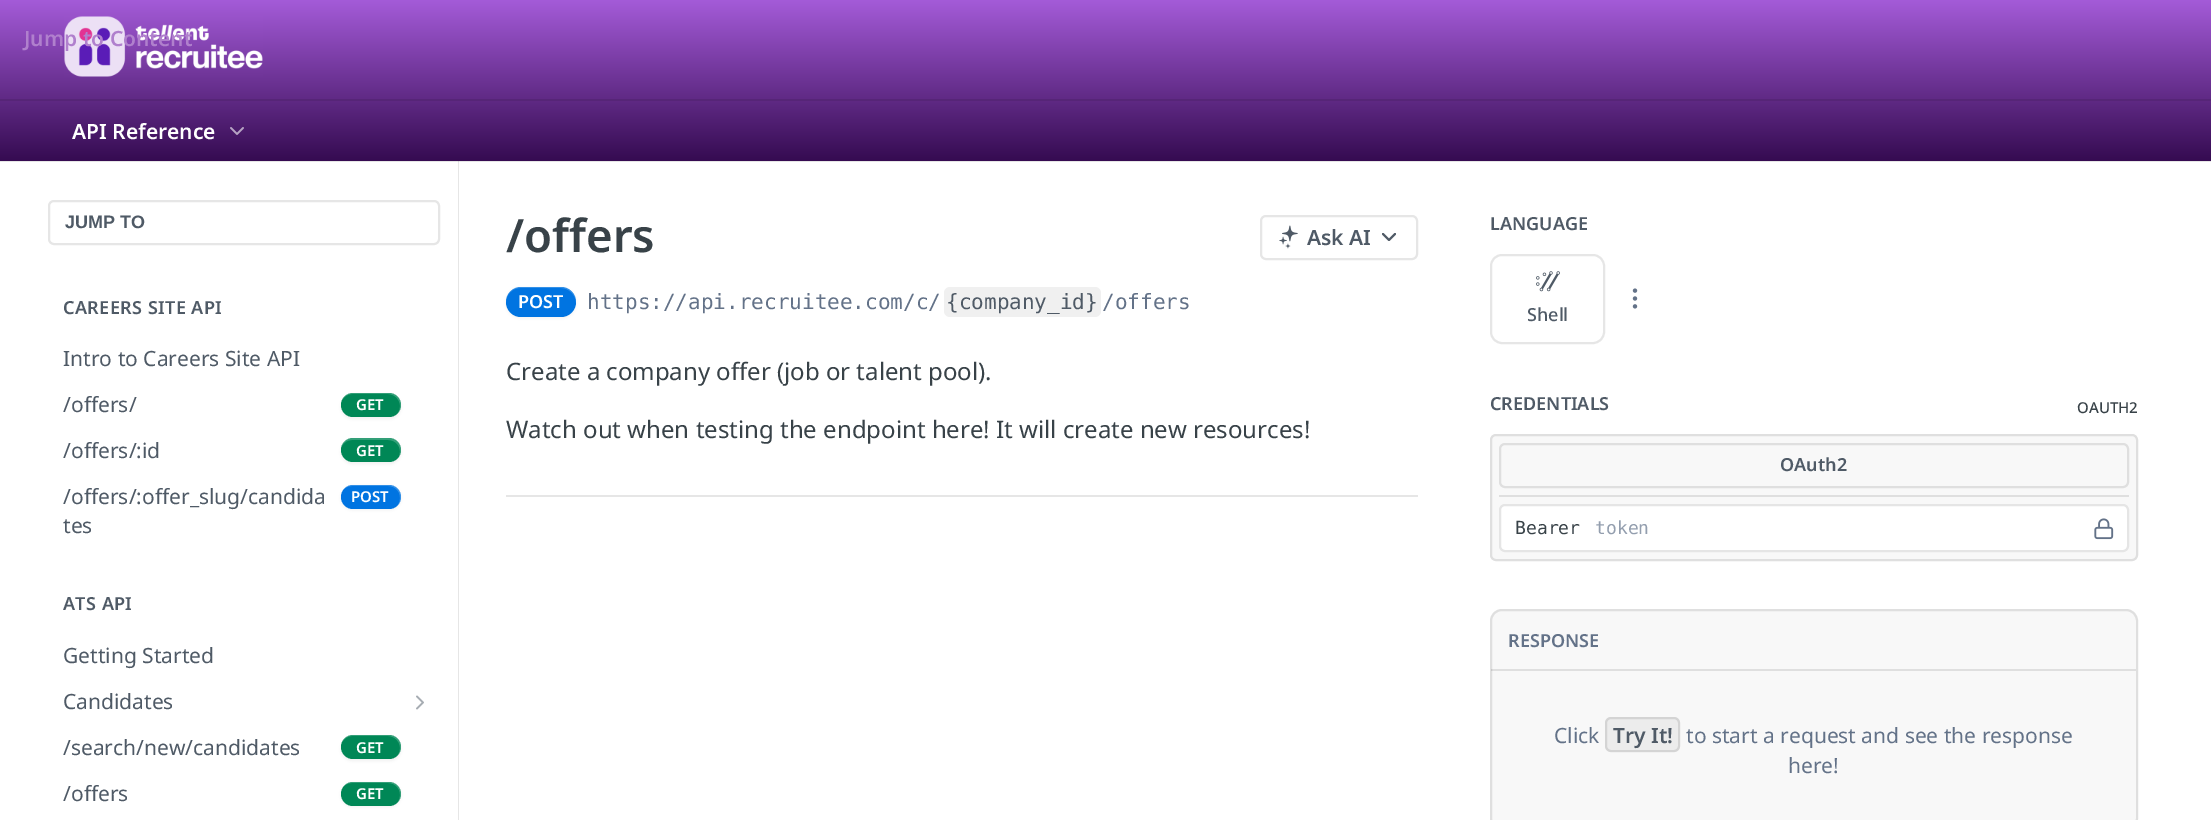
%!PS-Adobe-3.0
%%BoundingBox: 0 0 2211 820
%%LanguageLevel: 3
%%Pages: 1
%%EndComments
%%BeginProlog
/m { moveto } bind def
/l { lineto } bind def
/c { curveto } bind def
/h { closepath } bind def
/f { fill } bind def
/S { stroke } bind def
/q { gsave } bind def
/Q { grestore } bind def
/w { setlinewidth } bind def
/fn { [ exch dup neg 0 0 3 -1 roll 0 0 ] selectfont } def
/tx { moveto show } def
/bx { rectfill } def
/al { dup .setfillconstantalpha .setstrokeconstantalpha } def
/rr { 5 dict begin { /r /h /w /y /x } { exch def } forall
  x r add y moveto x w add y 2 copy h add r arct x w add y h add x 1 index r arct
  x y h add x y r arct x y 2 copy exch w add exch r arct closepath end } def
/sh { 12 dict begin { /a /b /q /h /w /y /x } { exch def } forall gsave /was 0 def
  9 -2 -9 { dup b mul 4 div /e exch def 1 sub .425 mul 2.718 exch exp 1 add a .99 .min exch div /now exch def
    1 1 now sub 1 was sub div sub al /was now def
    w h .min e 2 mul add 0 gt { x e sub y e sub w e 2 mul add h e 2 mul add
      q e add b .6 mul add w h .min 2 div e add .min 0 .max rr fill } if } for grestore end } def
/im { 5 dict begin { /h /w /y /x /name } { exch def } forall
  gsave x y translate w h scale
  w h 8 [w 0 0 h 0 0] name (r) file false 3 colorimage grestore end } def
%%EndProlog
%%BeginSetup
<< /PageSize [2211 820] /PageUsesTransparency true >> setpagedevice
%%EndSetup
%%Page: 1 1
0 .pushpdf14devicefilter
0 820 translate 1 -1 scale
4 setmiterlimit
1 setgray
0 0 2211 820 bx
0.902 setgray
0 161 2211 1 bx
q 0 0 m 2211 0 l 2211 161 l 0 161 l h clip newpath
<< /ShadingType 2 /ColorSpace /DeviceRGB /Coords [1106 0 1106 161] /Extend [true true] /Function << /FunctionType 2 /Domain [0 1] /C0 [0.643 0.357 0.847] /C1 [0.208 0.043 0.318] /N 1 >> >> shfill Q
0.337 0.145 0.467 setrgbcolor
0 99 2211 2 bx
(image0.raw) 64 16 199 61 im
/NotoSans-SemiBold 21 fn
0.69 0.502 0.804 setrgbcolor
(Jump to Content) 24 46 tx
1 setgray
(API Reference) 72 139 tx
(image1.raw) 230 127 14 8 im
0.902 setgray
458 161 1 659 bx
0.812 setgray
458 161 1 1 bx
0.902 setgray
2 w
49 201 390 43 5 rr S
/LiberationSans-Bold 18 fn
0.31 0.353 0.4 setrgbcolor
(JUMP TO) 65 228 tx
/NotoSans-SemiBold 18 fn
63 314 m 0.4 0 (CAREERS SITE API) ashow
/NotoSans-Regular 21 fn
(Intro to Careers Site API) 63 366 tx
(/offers/) 63 412 tx
0 setgray
341 395 60 24 12 1.5 0.05 sh
0 0.529 0.337 setrgbcolor
341 393 60 24 12 rr f
0.2 al
1 setgray
352 394 m 388 394 l 395 394 400 400 400 406 c 400 409 399 411 398 413 c 400 411 401 408 401 405 c 401 398 396 393 389 393 c 353 393 l 348 393 345 395 343 399 c 345 396 348 394 352 394 c h f
/NotoSans-SemiBold 15 fn
1 al
(GET) 356 410 tx
/NotoSans-Regular 21 fn
0.31 0.353 0.4 setrgbcolor
(/offers/:id) 63 458 tx
0 setgray
341 440 60 24 12 1.5 0.05 sh
0 0.529 0.337 setrgbcolor
341 438 60 24 12 rr f
0.2 al
1 setgray
352 440 m 388 440 l 395 440 400 445 400 452 c 399 457 l 400 455 401 452 401 450 c 401 443 396 438 389 438 c 353 438 l 348 438 343 441 342 446 c 344 442 348 440 352 440 c h f
/NotoSans-SemiBold 15 fn
1 al
(GET) 356 456 tx
/NotoSans-Regular 21 fn
0.31 0.353 0.4 setrgbcolor
(/offers/:offer_slug/candida) 63 504 tx
(tes) 63 533 tx
0 setgray
341 486 60 24 12 1.5 0.05 sh
0 0.455 0.882 setrgbcolor
341 485 60 24 12 rr f
0.2 al
1 setgray
352 486 m 388 486 l 395 486 400 491 400 498 c 400 501 399 503 398 505 c 400 503 401 500 401 497 c 401 490 396 485 389 485 c 353 485 l 349 485 346 487 344 489 c 346 487 349 486 352 486 c h f
/NotoSans-SemiBold 15 fn
1 al
(POST) 351 502 tx
/NotoSans-SemiBold 18 fn
0.31 0.353 0.4 setrgbcolor
63 610 m 0.4 0 (ATS API) ashow
/NotoSans-Regular 21 fn
(Getting Started) 63 663 tx
(Candidates) 63 709 tx
(image2.raw) 416 695 8 15 im
(/search/new/candidates) 63 755 tx
0 setgray
341 737 60 24 12 1.5 0.05 sh
0 0.529 0.337 setrgbcolor
341 735 60 24 12 rr f
0.2 al
1 setgray
352 736 m 388 736 l 395 736 400 742 400 748 c 400 751 399 753 398 755 c 400 753 401 750 401 747 c 401 740 396 735 389 735 c 353 735 l 348 735 345 737 343 741 c 345 738 348 736 352 736 c h f
/NotoSans-SemiBold 15 fn
1 al
(GET) 356 753 tx
/NotoSans-Regular 21 fn
0.31 0.353 0.4 setrgbcolor
(/offers) 63 801 tx
0 setgray
341 783 60 24 12 1.5 0.05 sh
0 0.529 0.337 setrgbcolor
341 782 60 24 12 rr f
0.2 al
1 setgray
352 783 m 388 783 l 395 783 400 788 400 795 c 400 798 399 800 398 802 c 400 800 401 797 401 794 c 401 787 396 782 389 782 c 353 782 l 349 782 346 784 344 786 c 346 784 349 783 352 783 c h f
/NotoSans-SemiBold 15 fn
1 al
(GET) 356 799 tx
0.902 setgray
506 495 912 2 bx
/NotoSans-SemiBold 45.5 fn
0.22 0.259 0.282 setrgbcolor
(/offers) 506 252 tx
0.902 setgray
1261 216 156 43 5 rr S
(image3.raw) 1279 225 19 24 im
/NotoSans-SemiBold 21 fn
0.31 0.353 0.4 setrgbcolor
(Ask AI) 1307 245 tx
1 setlinecap
1 setlinejoin
1383 234 m 1389 240 l 1395 234 l S
0 setgray
506 288 70 30 15 1.5 0.05 sh
0 0.455 0.882 setrgbcolor
506 287 70 30 15 rr f
0.2 al
1 setgray
520 288 m 561 288 l 569 288 576 295 576 303 c 576 302 l 576 294 569 287 561 287 c 521 287 l 513 287 506 294 506 302 c 506 295 512 288 520 288 c h f
/NotoSans-SemiBold 18 fn
1 al
(POST) 518 308 tx
/DejaVuSansMono-Regular 21 fn
0.388 0.447 0.533 setrgbcolor
(https://api.recruitee.com/c/) 587 309 tx
0.941 setgray
944 287 157 30 6 rr f
0.31 0.353 0.4 setrgbcolor
({company_id}) 946 309 tx
0.388 0.447 0.533 setrgbcolor
(/offers) 1102 309 tx
/NotoSans-Regular 24 fn
0.22 0.259 0.282 setrgbcolor
(Create a company offer \(job or talent pool\).) 506 380 tx
(Watch out when testing the endpoint here! It will create new resources!) 506 438 tx
/NotoSans-SemiBold 18 fn
0.31 0.353 0.4 setrgbcolor
(LANGUAGE) 1490 230 tx
(image4.raw) 1632 288 6 21 im
0.902 setgray
0 setlinecap
0 setlinejoin
1491 255 113 88 11 rr S
(image5.raw) 1536 271 24 21 im
/NotoSans-Medium 18 fn
0.31 0.353 0.4 setrgbcolor
(Shell) 1527 321 tx
/NotoSans-SemiBold 18 fn
(CREDENTIALS) 1490 410 tx
/NotoSans-Medium 15 fn
0.22 0.259 0.282 setrgbcolor
(OAUTH2) 2077 413 tx
0.973 setgray
1491 435 646 125 5 rr q f Q
0.875 setgray
S
1499 495 630 2 bx
1500 444 628 43 5 rr S
/NotoSans-SemiBold 18 fn
0.31 0.353 0.4 setrgbcolor
(OAuth2) 1780 471 tx
1 setgray
1500 505 628 46 5 rr q f Q
0.898 setgray
S
/DejaVuSansMono-Regular 18 fn
0.22 0.259 0.282 setrgbcolor
(Bearer) 1515 534 tx
0.576 0.62 0.682 setrgbcolor
(token) 1595 534 tx
(image6.raw) 2094 518 20 22 im
0.973 setgray
1490 609 648 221 12 rr f
0.1 al
0 setgray
1491 610 646 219 11 rr S
1491 669 645 2 bx
/NotoSans-SemiBold 18 fn
1 al
0.388 0.447 0.533 setrgbcolor
(RESPONSE) 1508 647 tx
/NotoSans-Regular 21 fn
(Click) 1554 743 tx
0.925 setgray
1605 717 75 35 6 rr f
0.1 al
0 setgray
1606 718 73 33 5 rr S
/NotoSans-SemiBold 21 fn
1 al
0.31 0.353 0.4 setrgbcolor
(Try It!) 1613 743 tx
/NotoSans-Regular 21 fn
0.388 0.447 0.533 setrgbcolor
(to start a request and see the response) 1686 743 tx
(here!) 1788 773 tx
.poppdf14devicefilter showpage
%%EOF
